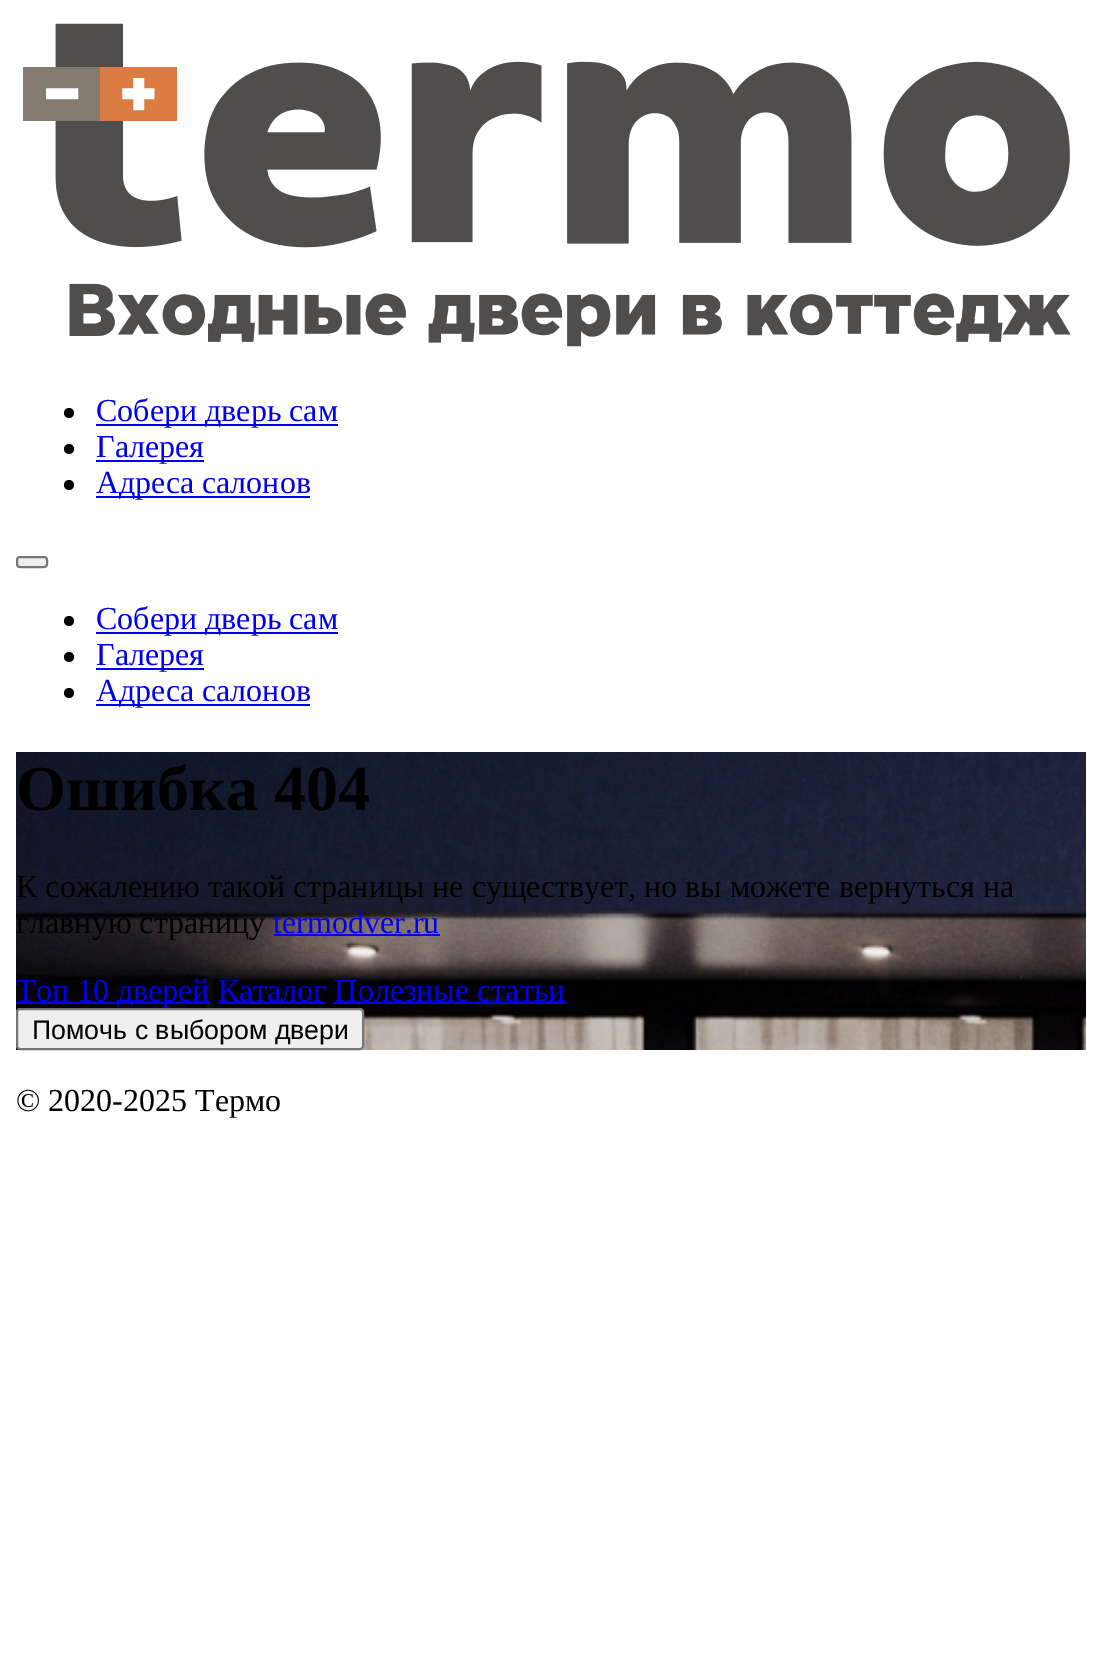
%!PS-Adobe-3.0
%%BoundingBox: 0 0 1102 1676
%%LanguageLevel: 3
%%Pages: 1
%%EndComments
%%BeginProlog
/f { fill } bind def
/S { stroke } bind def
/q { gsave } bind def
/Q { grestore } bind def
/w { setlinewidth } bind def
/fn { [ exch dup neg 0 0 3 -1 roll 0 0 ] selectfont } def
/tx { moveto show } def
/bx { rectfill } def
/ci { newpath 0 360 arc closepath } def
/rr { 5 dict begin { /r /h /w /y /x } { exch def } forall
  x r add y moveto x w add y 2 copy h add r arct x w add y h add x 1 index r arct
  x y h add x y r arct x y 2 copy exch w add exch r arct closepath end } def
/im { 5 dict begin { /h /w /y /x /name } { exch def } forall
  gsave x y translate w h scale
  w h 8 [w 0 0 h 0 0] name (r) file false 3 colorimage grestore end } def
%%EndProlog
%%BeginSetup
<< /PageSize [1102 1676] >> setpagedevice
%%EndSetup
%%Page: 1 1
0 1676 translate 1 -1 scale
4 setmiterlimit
1 setgray
0 0 1102 1676 bx
(image0.raw) 23 23 1048 324 im
0 setgray
69 413 5 ci f
0 0 0.933 setrgbcolor
96 424 242 2 bx
/LiberationSerif-Regular 32 fn
(Собери дверь сам) 96 421 tx
0 setgray
69 449 5 ci f
0 0 0.933 setrgbcolor
96 460 108 2 bx
(Галерея) 96 457 tx
0 setgray
69 485 5 ci f
0 0 0.933 setrgbcolor
96 496 214 2 bx
(Адреса салонов) 96 493 tx
0.937 setgray
17 557 30 10 3 rr q f Q
0.463 setgray
2 w
S
0 setgray
69 621 5 ci f
0 0 0.933 setrgbcolor
96 632 242 2 bx
(Собери дверь сам) 96 629 tx
0 setgray
69 657 5 ci f
0 0 0.933 setrgbcolor
96 668 108 2 bx
(Галерея) 96 665 tx
0 setgray
69 693 5 ci f
0 0 0.933 setrgbcolor
96 704 214 2 bx
(Адреса салонов) 96 701 tx
(image1.raw) 16 752 1070 298 im
/LiberationSerif-Bold 64 fn
0 setgray
(Ошибка 404) 16 810 tx
/LiberationSerif-Regular 32 fn
(К сожалению такой страницы не существует, но вы можете вернуться на) 16 897 tx
(главную страницу) 16 933 tx
0 0 0.933 setrgbcolor
(termodver.ru) 273 933 tx
274 934 166 2 bx
16 1002 194 2 bx
(Топ 10 дверей Каталог Полезные статьи) 16 1001 tx
218 1002 108 2 bx
334 1002 232 2 bx
0.937 setgray
17 1009 346 40 3 rr q f Q
0.463 setgray
S
/LiberationSans-Regular 26.75 fn
0 setgray
(Помочь с выбором двери) 32 1039 tx
/LiberationSerif-Regular 32 fn
(© 2020-2025 Термо) 16 1111 tx
showpage
%%EOF
